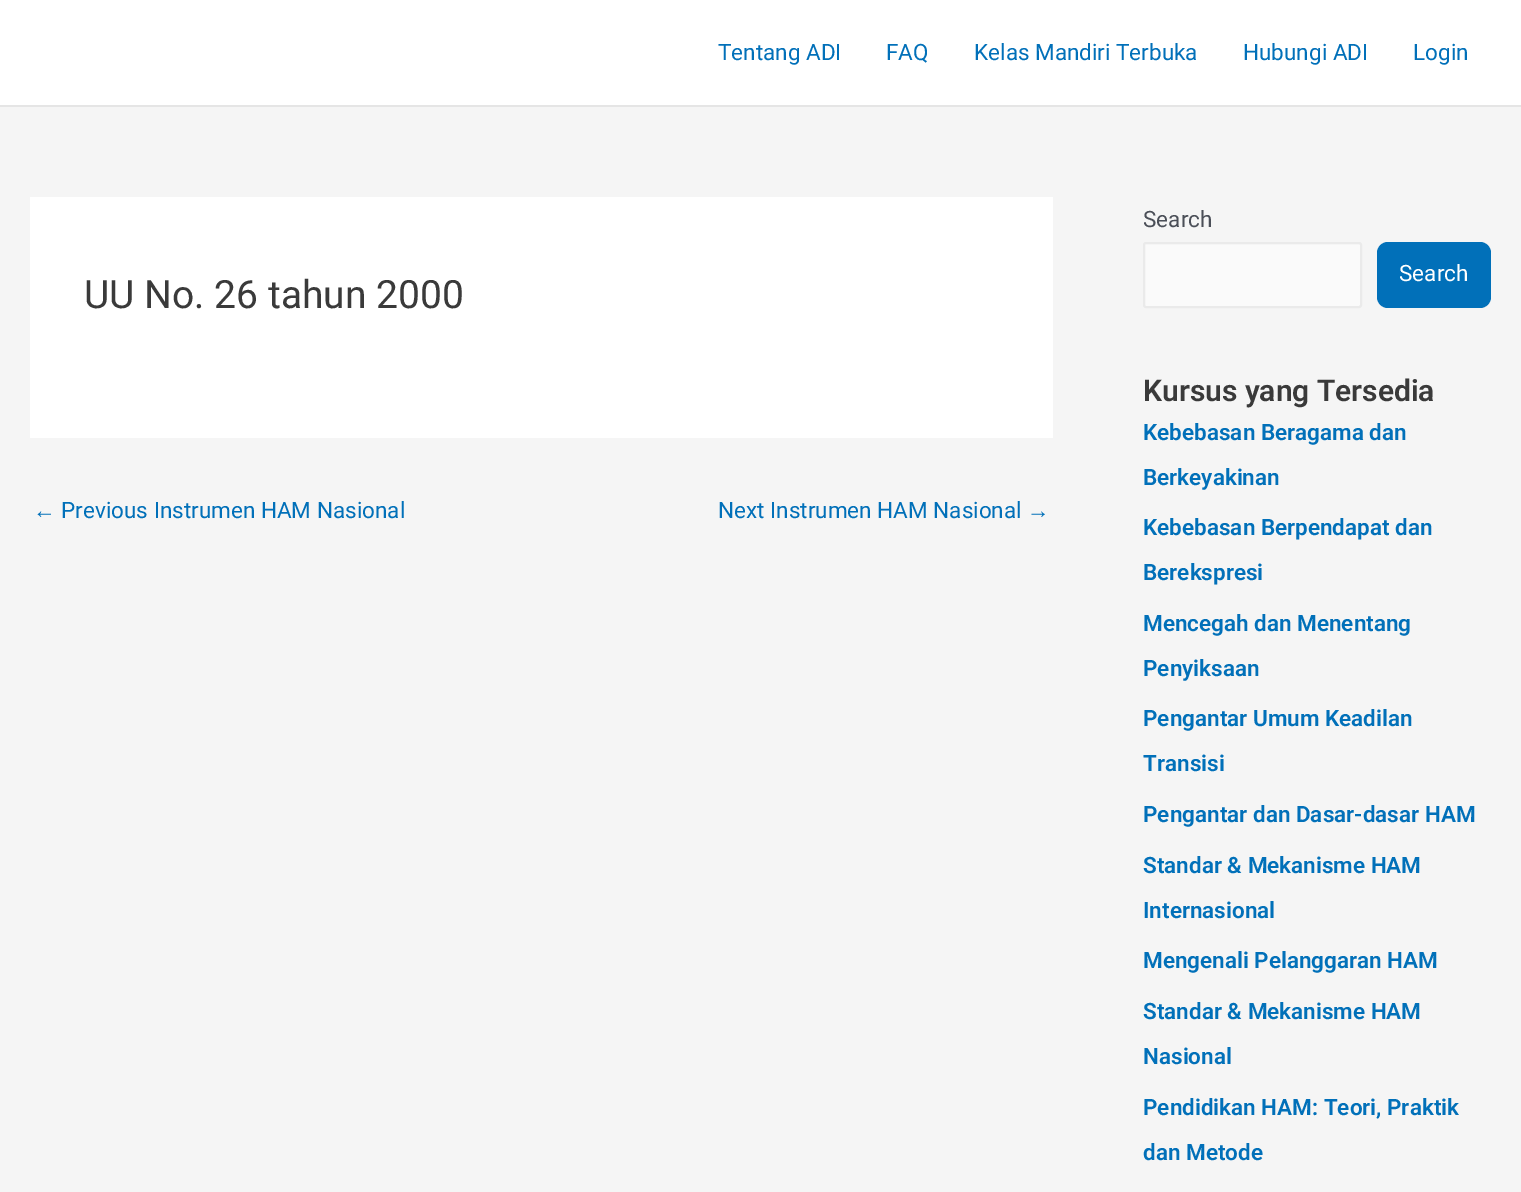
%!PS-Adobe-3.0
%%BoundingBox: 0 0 1521 1192
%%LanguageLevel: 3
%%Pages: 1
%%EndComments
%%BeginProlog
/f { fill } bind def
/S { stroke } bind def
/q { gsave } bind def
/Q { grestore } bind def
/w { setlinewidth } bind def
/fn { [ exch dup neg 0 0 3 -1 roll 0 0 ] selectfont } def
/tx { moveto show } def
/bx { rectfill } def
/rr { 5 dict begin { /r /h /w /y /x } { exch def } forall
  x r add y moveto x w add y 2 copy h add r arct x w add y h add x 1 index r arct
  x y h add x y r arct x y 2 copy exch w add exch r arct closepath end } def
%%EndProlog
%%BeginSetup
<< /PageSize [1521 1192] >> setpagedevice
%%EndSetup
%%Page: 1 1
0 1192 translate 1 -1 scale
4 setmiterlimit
0.961 setgray
0 0 1521 1192 bx
1 setgray
0 0 1521 105 bx
0.898 setgray
0 105 1521 2 bx
/Roboto-Regular 22.5 fn
0.004 0.439 0.725 setrgbcolor
(Tentang ADI) 718 60 tx
(FAQ) 886 60 tx
(Kelas Mandiri Terbuka) 974 60 tx
(Hubungi ADI) 1243 60 tx
(Login) 1413 60 tx
1 setgray
30 197 1023 241 bx
/Roboto-Regular 39 fn
0.227 setgray
(UU No. 26 tahun 2000) 84 308 tx
/LiberationSans-Regular 22.5 fn
0.004 0.439 0.725 setrgbcolor
(←) 33 518 tx
/Roboto-Regular 22.5 fn
(Previous Instrumen HAM Nasional) 61 518 tx
(Next Instrumen HAM Nasional) 718 518 tx
/LiberationSans-Regular 22.5 fn
(→) 1027 518 tx
/Roboto-Regular 22.5 fn
0.294 0.31 0.345 setrgbcolor
(Search) 1143 227 tx
0.98 setgray
1144 243 217 64 2 rr q f Q
0.918 setgray
2 w
S
0.004 0.439 0.725 setrgbcolor
1377 242 114 66 11 rr f
1 setgray
(Search) 1399 281 tx
/Roboto-SemiBold 30 fn
0.227 setgray
(Kursus yang Tersedia) 1143 401 tx
/Roboto-SemiBold 22.5 fn
0.004 0.439 0.725 setrgbcolor
(Kebebasan Beragama dan) 1143 440 tx
(Berkeyakinan) 1143 485 tx
(Kebebasan Berpendapat dan) 1143 535 tx
(Berekspresi) 1143 580 tx
(Mencegah dan Menentang) 1143 631 tx
(Penyiksaan) 1143 676 tx
(Pengantar Umum Keadilan) 1143 726 tx
(Transisi) 1143 771 tx
(Pengantar dan Dasar-dasar HAM) 1143 822 tx
(Standar & Mekanisme HAM) 1143 873 tx
(Internasional) 1143 918 tx
(Mengenali Pelanggaran HAM) 1143 968 tx
(Standar & Mekanisme HAM) 1143 1019 tx
(Nasional) 1143 1064 tx
(Pendidikan HAM: Teori, Praktik) 1143 1115 tx
(dan Metode) 1143 1160 tx
showpage
%%EOF
